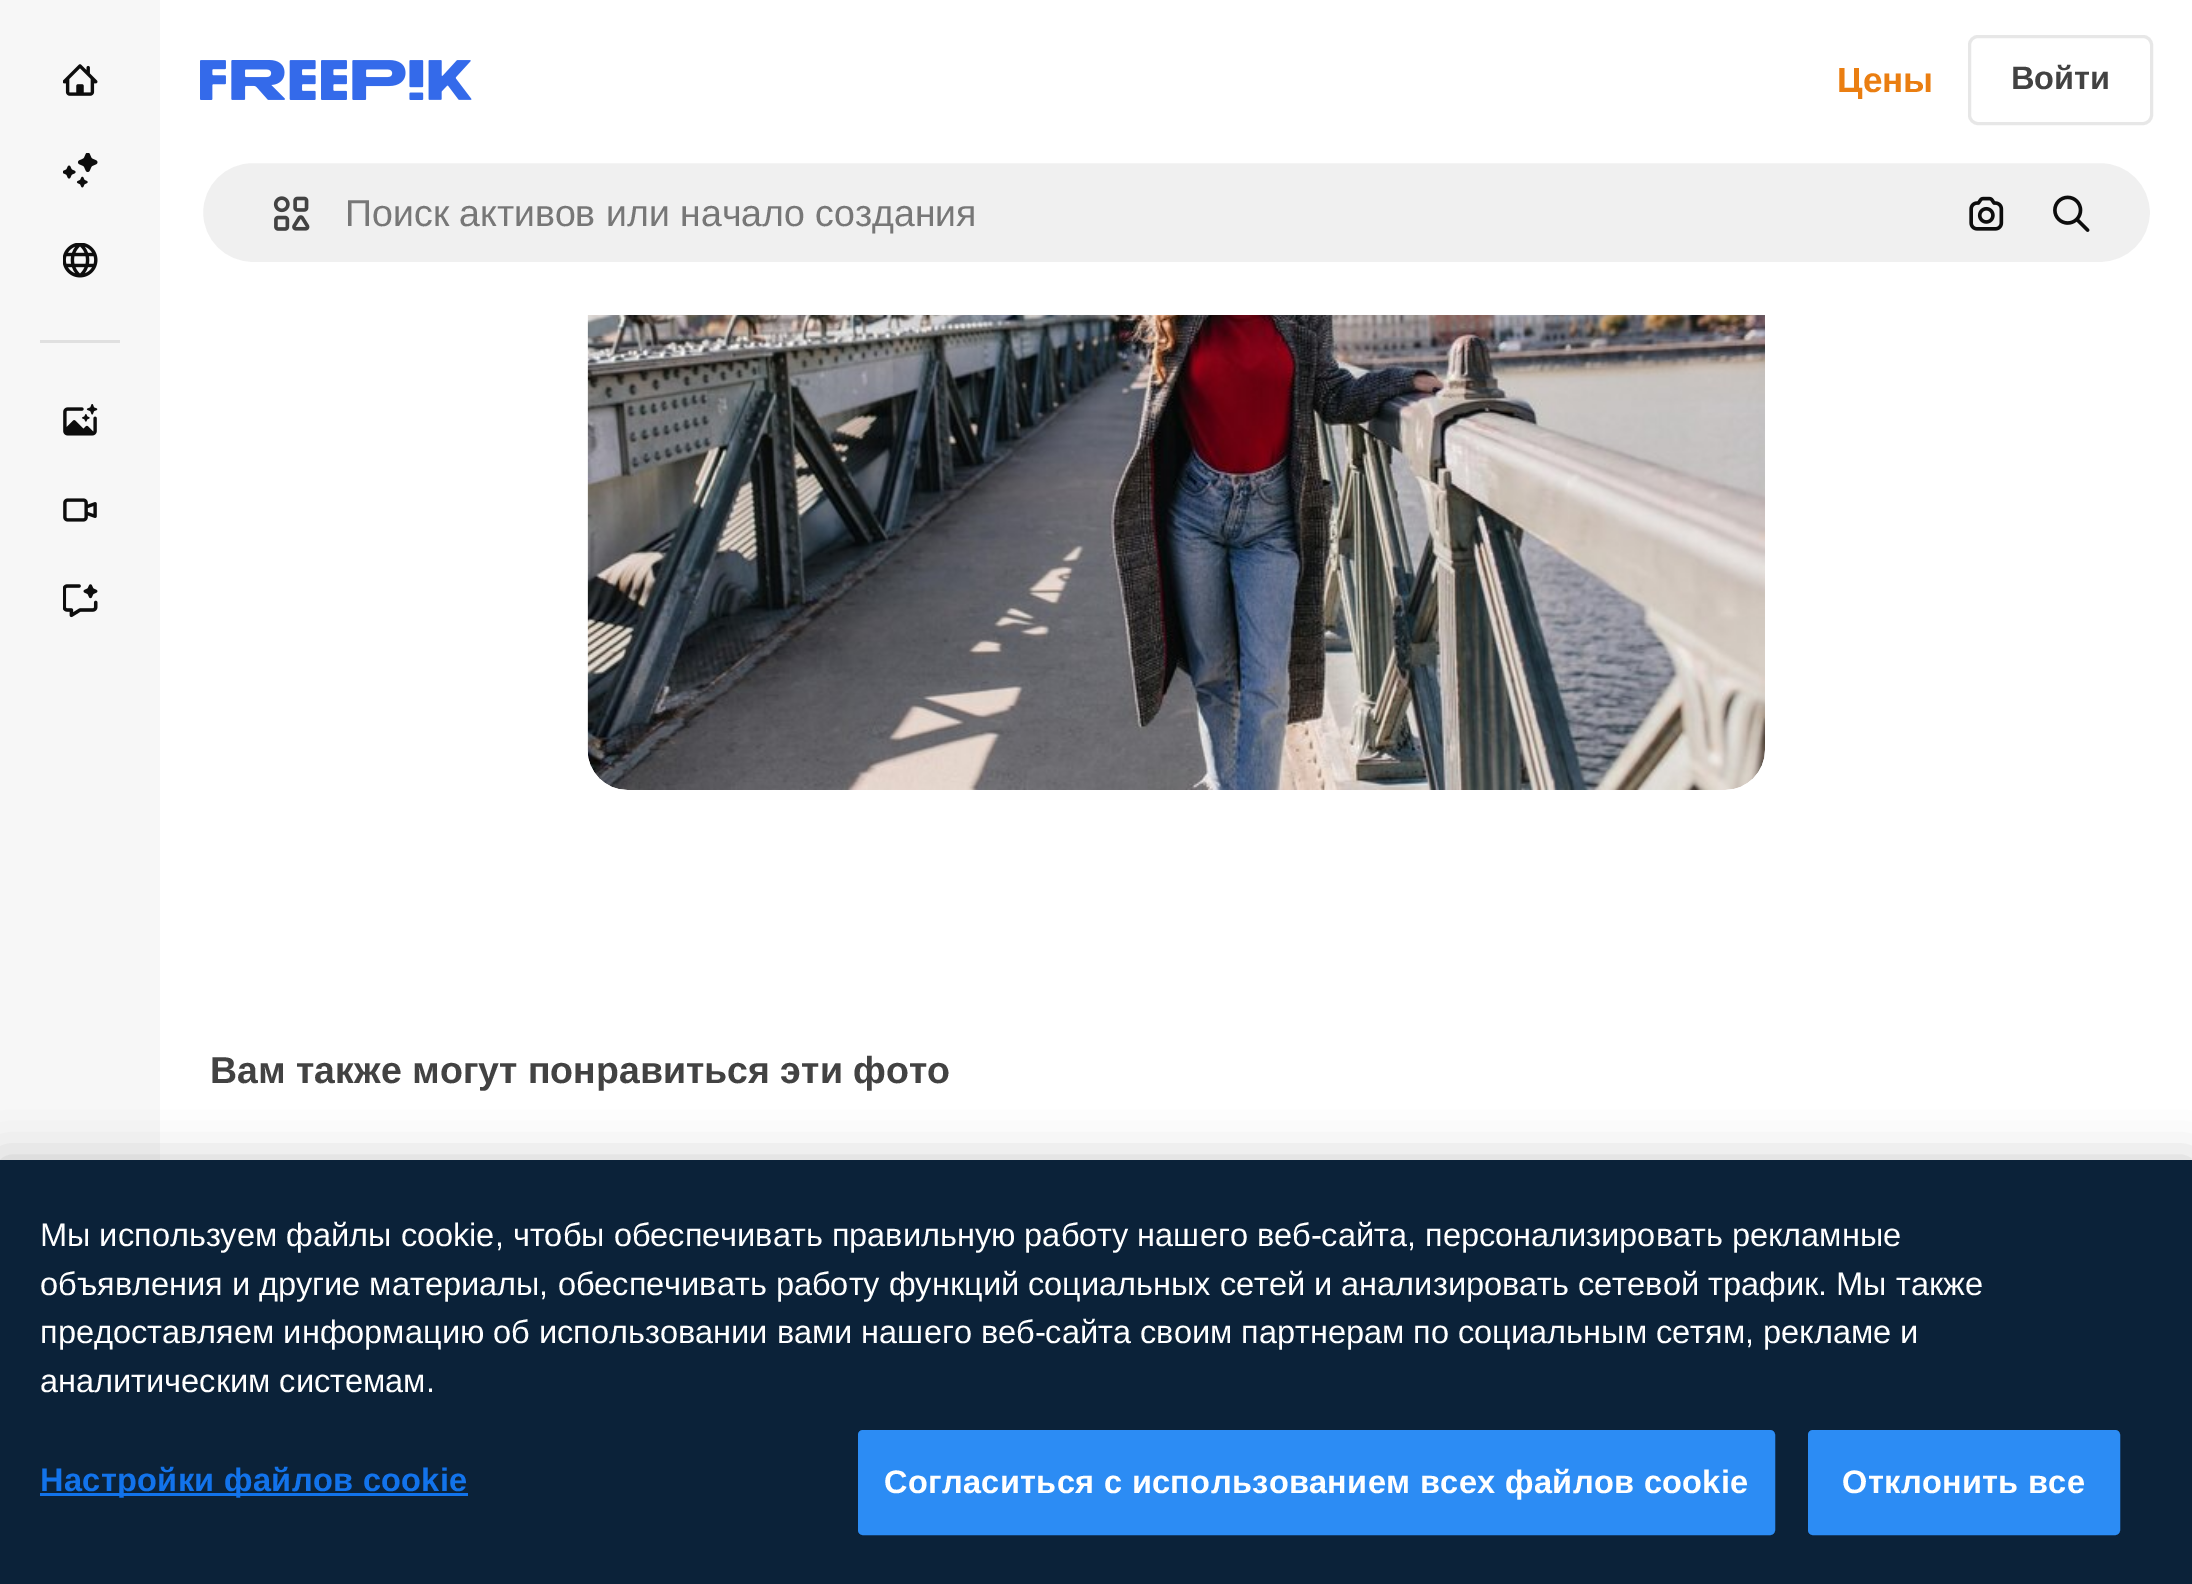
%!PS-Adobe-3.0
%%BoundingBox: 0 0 2192 1584
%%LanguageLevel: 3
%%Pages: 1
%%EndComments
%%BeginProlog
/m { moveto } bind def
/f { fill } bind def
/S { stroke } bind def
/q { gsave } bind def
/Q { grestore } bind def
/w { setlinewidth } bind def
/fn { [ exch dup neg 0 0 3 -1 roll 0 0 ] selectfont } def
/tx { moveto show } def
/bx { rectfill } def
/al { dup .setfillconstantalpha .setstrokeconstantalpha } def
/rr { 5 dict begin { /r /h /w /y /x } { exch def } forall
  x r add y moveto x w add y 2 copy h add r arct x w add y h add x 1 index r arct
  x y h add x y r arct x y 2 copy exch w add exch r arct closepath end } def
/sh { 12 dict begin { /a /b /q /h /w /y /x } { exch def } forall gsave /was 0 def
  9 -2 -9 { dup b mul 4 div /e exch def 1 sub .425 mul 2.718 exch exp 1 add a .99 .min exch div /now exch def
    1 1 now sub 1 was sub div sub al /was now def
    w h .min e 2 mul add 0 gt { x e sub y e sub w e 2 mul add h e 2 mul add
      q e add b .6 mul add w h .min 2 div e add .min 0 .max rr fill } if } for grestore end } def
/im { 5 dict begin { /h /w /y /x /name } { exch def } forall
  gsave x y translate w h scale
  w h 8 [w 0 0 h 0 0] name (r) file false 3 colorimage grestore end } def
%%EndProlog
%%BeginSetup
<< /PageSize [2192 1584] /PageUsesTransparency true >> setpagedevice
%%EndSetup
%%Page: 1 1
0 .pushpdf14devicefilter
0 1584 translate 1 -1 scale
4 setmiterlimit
1 setgray
0 0 2192 1584 bx
0.969 setgray
0 0 160 1160 bx
(image0.raw) 63 64 35 32 im
(image1.raw) 63 153 35 35 im
(image2.raw) 63 243 35 35 im
0.878 setgray
40 340 80 3 bx
(image3.raw) 63 404 35 32 im
(image4.raw) 63 498 34 24 im
(image5.raw) 63 584 35 34 im
(image6.raw) 200 60 272 40 im
/LiberationSans-Bold 35 fn
0.918 0.494 0.067 setrgbcolor
(Цены) 1837 92 tx
0.906 setgray
3 w
1969.5 36.5 182 87 8.5 rr S
/LiberationSans-Bold 32.5 fn
0.259 setgray
(Войти) 2011 89 tx
0.941 setgray
201.5 161.5 1950 102 51 rr q f Q
1 setgray
S
(image7.raw) 273 196 37 35 im
/LiberationSans-Regular 37.5 fn
0.467 setgray
(Поиск активов или начало создания) 345 226 tx
(image8.raw) 1969 196 35 35 im
(image9.raw) 2053 195 37 37 im
(image10.raw) 587 315 1178 475 im
/LiberationSans-Bold 37.5 fn
0.259 setgray
(Вам также могут понравиться эти фото) 210 1083 tx
0 setgray
0 1160 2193 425 0 22.5 0.2 sh
0.043 0.133 0.224 setrgbcolor
0 1160 2192 424 bx
/LiberationSans-Regular 32.52 fn
1 setgray
(Мы используем файлы cookie, чтобы обеспечивать правильную работу нашего веб-сайта, персонализировать рекламные) 40 1246 tx
(объявления и другие материалы, обеспечивать работу функций социальных сетей и анализировать сетевой трафик. Мы также) 40 1295 tx
(предоставляем информацию об использовании вами нашего веб-сайта своим партнерам по социальным сетям, рекламе и) 40 1343 tx
(аналитическим системам.) 40 1392 tx
0.071 0.451 0.922 setrgbcolor
40 1493 428 3 bx
/LiberationSans-Bold 32.52 fn
40 1491 m 0.35 0 (Настройки файлов cookie) ashow
0.173 0.549 0.957 setrgbcolor
859.5 1431.5 914 102 3.5 rr q f Q
S
1 setgray
884 1493 m 0.35 0 (Согласиться с использованием всех файлов cookie) ashow
0.173 0.549 0.957 setrgbcolor
1809.5 1431.5 309 102 3.5 rr q f Q
S
1 setgray
1842 1493 m 0.35 0 (Отклонить все) ashow
.poppdf14devicefilter showpage
%%EOF
